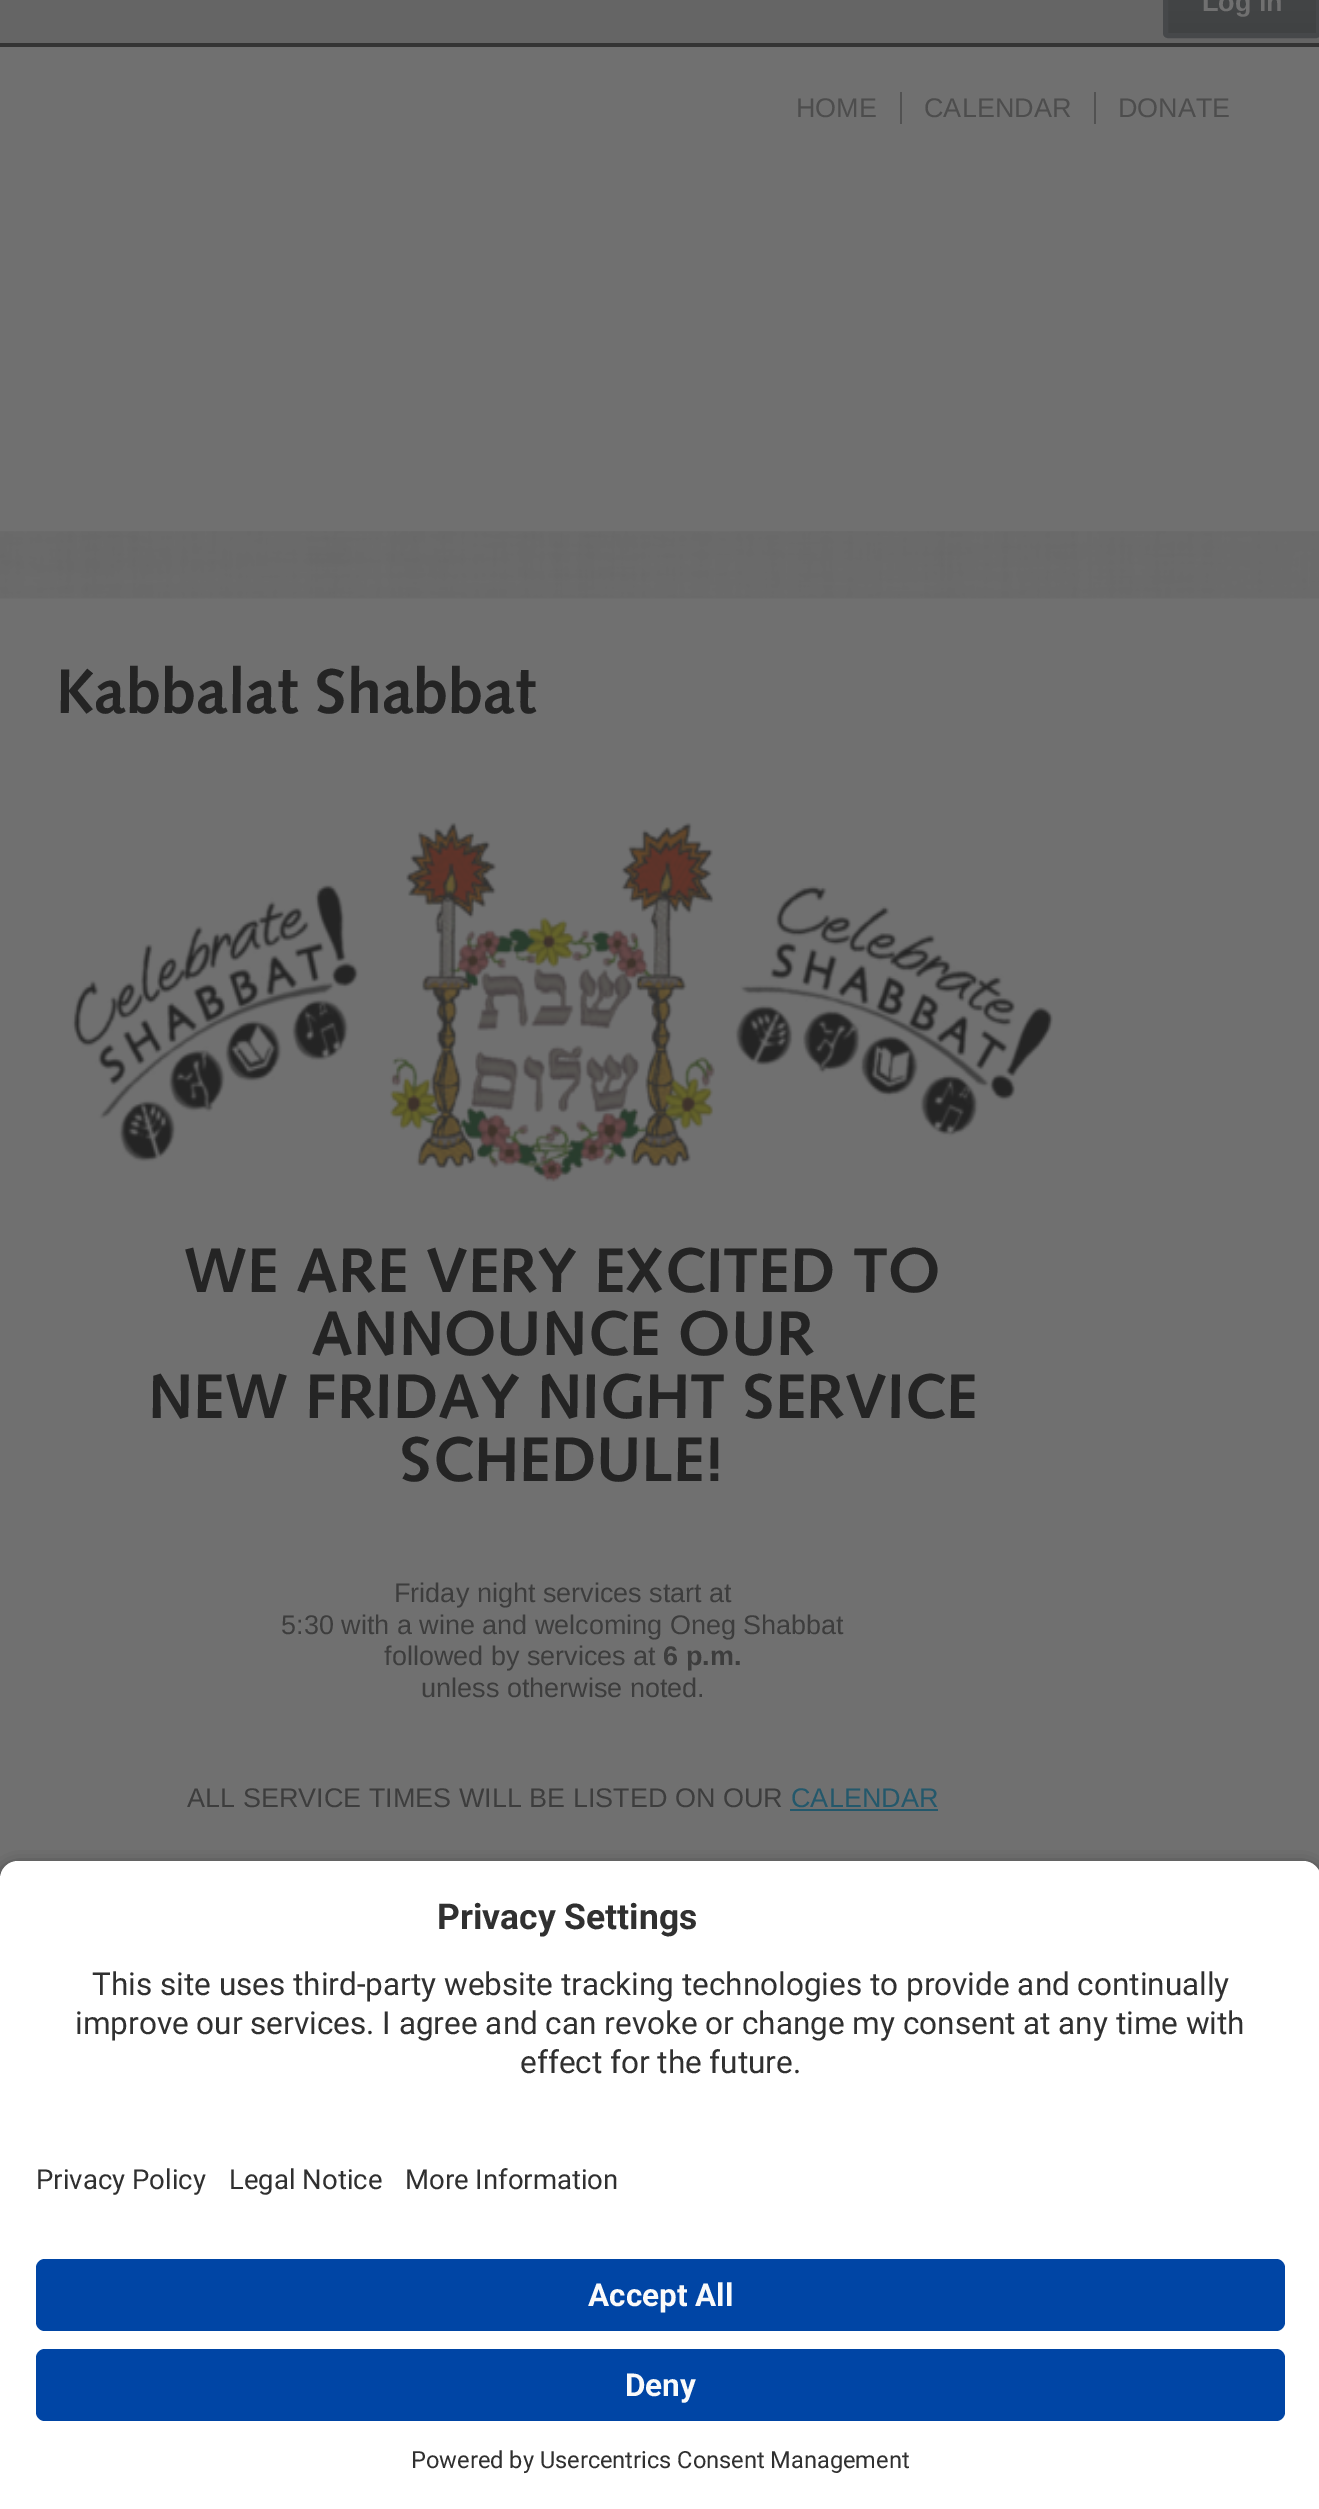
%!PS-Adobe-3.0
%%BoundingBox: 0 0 1319 2509
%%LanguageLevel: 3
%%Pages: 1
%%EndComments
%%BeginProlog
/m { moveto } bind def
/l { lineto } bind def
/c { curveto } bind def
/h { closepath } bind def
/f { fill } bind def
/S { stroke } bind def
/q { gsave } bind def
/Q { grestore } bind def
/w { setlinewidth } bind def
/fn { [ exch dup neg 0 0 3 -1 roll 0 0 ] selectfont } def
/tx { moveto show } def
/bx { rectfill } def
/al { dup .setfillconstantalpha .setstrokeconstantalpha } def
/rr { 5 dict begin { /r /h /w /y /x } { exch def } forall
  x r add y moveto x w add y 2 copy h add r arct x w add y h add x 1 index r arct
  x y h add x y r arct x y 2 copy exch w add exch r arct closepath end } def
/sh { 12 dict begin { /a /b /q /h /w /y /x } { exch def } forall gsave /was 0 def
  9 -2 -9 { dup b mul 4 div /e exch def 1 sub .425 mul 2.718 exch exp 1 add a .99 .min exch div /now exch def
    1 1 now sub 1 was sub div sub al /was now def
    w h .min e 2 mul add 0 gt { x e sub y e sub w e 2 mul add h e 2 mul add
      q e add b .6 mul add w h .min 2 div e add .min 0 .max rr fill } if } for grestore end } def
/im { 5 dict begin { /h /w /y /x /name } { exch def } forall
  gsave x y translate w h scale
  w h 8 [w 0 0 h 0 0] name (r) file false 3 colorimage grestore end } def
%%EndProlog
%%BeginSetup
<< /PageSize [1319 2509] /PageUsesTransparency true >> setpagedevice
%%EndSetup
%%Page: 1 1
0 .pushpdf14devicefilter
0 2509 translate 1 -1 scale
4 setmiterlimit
0.439 setgray
0 0 1319 2509 bx
0.396 setgray
0 0 1319 43 bx
0.204 setgray
0 43 1319 4 bx
q 1163 0 m 1316 0 l 1316 34 l 1163 34 l h clip newpath
<< /ShadingType 2 /ColorSpace /DeviceRGB /Coords [1242 -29 1242 34] /Extend [true true] /Function << /FunctionType 3 /Domain [0 1] /Functions [<< /FunctionType 2 /Domain [0 1] /C0 [0.275 0.282 0.282] /C1 [0.275 0.282 0.282] /N 1 >> << /FunctionType 2 /Domain [0 1] /C0 [0.275 0.282 0.282] /C1 [0.251 0.259 0.263] /N 1 >>] /Bounds [0.05] /Encode [0 1 0 1] >> >> shfill Q
0.275 0.282 0.29 setrgbcolor
5 w
1165.5 -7.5 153 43 2.5 rr S
/LiberationSans-Bold 27 fn
0.439 setgray
(Log in) 1202 11 tx
(image0.raw) 0 531 1319 68 im
/LiberationSans-Regular 27 fn
0.302 setgray
(HOME) 796 117 tx
0.322 setgray
900 92 2 32 bx
0.302 setgray
(CALENDAR) 924 117 tx
0.322 setgray
1094 92 2 32 bx
0.302 setgray
(DONATE) 1118 117 tx
/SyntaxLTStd-Bold 63 fn
0.141 setgray
(Kabbalat Shabbat) 56 713 tx
(image1.raw) 72 822 981 360 im
(WE ARE VERY EXCITED TO) 184 1292 tx
(ANNOUNCE OUR) 311 1355 tx
(NEW FRIDAY NIGHT SERVICE) 148 1418 tx
(SCHEDULE!) 400 1481 tx
/LiberationSans-Regular 27 fn
0.239 setgray
(Friday night services start at) 394 1602 tx
(5:30 with a wine and welcoming Oneg Shabbat) 281 1634 tx
(followed by services at) 384 1665 tx
/LiberationSans-Bold 27 fn
(6 p.m.) 663 1665 tx
/LiberationSans-Regular 27 fn
(unless otherwise noted.) 421 1697 tx
(ALL SERVICE TIMES WILL BE LISTED ON OUR) 187 1807 tx
0.141 0.345 0.42 setrgbcolor
(CALENDAR) 791 1807 tx
790 1809 148 2 bx
0 setgray
0 1868 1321 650 18 8 0.8 sh
1 setgray
18 1861 m 1303 1861 l 1313 1861 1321 1869 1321 1879 c 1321 2129 l 0 2129 l 0 1879 l 0 1869 8 1861 18 1861 c h f
/Roboto-Bold 35.5 fn
0.188 setgray
(Privacy Settings) 437 1929 tx
/Roboto-Regular 31.5 fn
(This site uses third-party website tracking technologies to provide and continually) 92 1995 tx
(improve our services. I agree and can revoke or change my consent at any time with) 75 2034 tx
(effect for the future.) 520 2073 tx
1 setgray
0 2129 1319 380 bx
/Roboto-Regular 27.5 fn
0.188 setgray
(Privacy Policy) 36 2189 tx
(Legal Notice) 229 2189 tx
(More Information) 405 2189 tx
0 0.271 0.647 setrgbcolor
36 2259 1249 72 9 rr f
/Roboto-Bold 31.5 fn
0.98 setgray
(Accept All) 588 2306 tx
0 0.271 0.647 setrgbcolor
36 2349 1249 72 9 rr f
0.98 setgray
(Deny) 625 2396 tx
/Roboto-Regular 23.6 fn
0.188 setgray
(Powered by Usercentrics Consent Management) 411 2468 tx
.poppdf14devicefilter showpage
%%EOF
